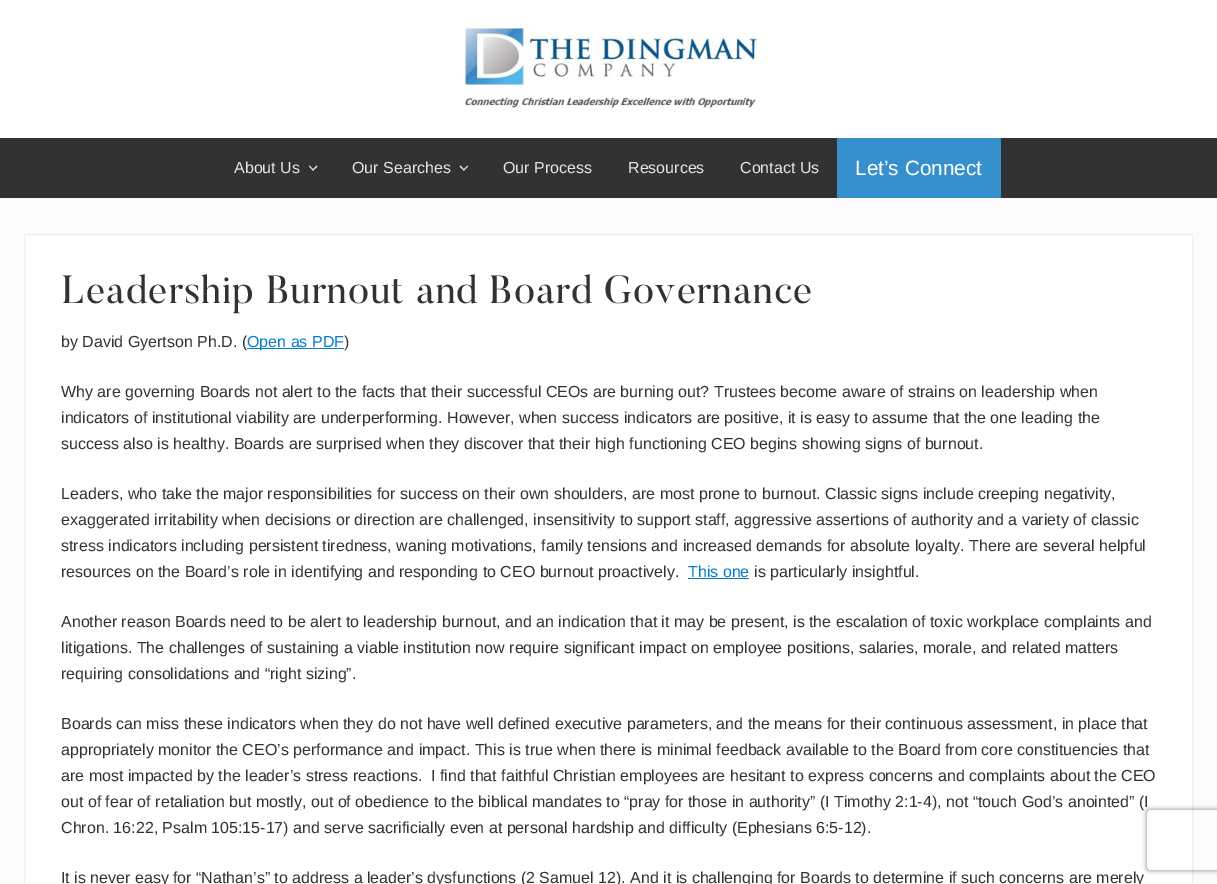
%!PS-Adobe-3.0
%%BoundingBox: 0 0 1217 884
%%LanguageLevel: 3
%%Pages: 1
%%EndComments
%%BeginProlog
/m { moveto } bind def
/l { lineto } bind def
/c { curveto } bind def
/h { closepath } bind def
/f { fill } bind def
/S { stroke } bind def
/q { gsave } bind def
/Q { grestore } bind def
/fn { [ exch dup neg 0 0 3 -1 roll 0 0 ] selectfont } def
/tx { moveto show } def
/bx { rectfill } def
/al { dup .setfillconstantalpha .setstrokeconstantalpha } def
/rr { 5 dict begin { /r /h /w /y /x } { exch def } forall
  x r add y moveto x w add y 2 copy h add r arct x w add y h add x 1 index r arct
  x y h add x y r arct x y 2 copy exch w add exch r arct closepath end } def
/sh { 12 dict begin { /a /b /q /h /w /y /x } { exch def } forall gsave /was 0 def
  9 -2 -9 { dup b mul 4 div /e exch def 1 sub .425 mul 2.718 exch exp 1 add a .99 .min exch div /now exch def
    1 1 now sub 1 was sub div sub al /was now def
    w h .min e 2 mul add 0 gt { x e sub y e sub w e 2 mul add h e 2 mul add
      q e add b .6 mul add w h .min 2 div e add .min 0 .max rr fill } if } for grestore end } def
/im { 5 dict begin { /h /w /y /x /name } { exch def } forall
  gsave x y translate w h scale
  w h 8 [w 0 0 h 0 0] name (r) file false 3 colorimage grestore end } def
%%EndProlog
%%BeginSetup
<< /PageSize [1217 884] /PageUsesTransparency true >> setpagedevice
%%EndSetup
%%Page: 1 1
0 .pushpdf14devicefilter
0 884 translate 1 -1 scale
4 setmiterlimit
0.988 setgray
0 0 1217 884 bx
1 setgray
0 0 1217 138 bx
(image0.raw) 465 28 293 80 im
0.196 setgray
0 138 1217 60 bx
/LiberationSans-Regular 16 fn
0.894 setgray
(About Us) 234 173 tx
316.5 165.5 m 317.5 166.5 l 313 170.5 l 312.5 170 l h f
309.5 165.5 m 314 170 l 313 170.5 l 309 166.5 l h f
(Our Searches) 352 173 tx
467.5 165.5 m 468 166.5 l 464 170.5 l 463 170 l h f
460.5 165.5 m 464.5 170 l 464 170.5 l 459.5 166.5 l h f
(Our Process) 503 173 tx
(Resources) 628 173 tx
(Contact Us) 740 173 tx
0.212 0.565 0.804 setrgbcolor
837 138 164 60 bx
/LiberationSans-Regular 20.75 fn
1 setgray
(Let’s Connect) 855 175 tx
24.5 234.5 m 1192.5 234.5 l 1192.5 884.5 l 24.5 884.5 l h q f Q
0.941 setgray
S
/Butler-Regular 39.1 fn
0.196 setgray
61 303 m 1 0 (Leadership Burnout and Board Governance) ashow
/LiberationSans-Regular 16 fn
(by David Gyertson Ph.D. \() 61 347 tx
0.024 0.486 0.8 setrgbcolor
247 348 97 1 bx
(Open as PDF) 247 347 tx
0.196 setgray
(\)) 344 347 tx
(Why are governing Boards not alert to the facts that their successful CEOs are burning out? Trustees become aware of strains on leadership when) 61 397 tx
(indicators of institutional viability are underperforming. However, when success indicators are positive, it is easy to assume that the one leading the) 61 423 tx
(success also is healthy. Boards are surprised when they discover that their high functioning CEO begins showing signs of burnout.) 61 449 tx
(Leaders, who take the major responsibilities for success on their own shoulders, are most prone to burnout. Classic signs include creeping negativity,) 61 499 tx
(exaggerated irritability when decisions or direction are challenged, insensitivity to support staff, aggressive assertions of authority and a variety of classic) 61 525 tx
(stress indicators including persistent tiredness, waning motivations, family tensions and increased demands for absolute loyalty. There are several helpful) 61 551 tx
(resources on the Board’s role in identifying and responding to CEO burnout proactively.) 61 577 tx
0.024 0.486 0.8 setrgbcolor
(This one) 688 577 tx
688 578 61 1 bx
0.196 setgray
(is particularly insightful.) 754 577 tx
(Another reason Boards need to be alert to leadership burnout, and an indication that it may be present, is the escalation of toxic workplace complaints and) 61 627 tx
(litigations. The challenges of sustaining a viable institution now require significant impact on employee positions, salaries, morale, and related matters) 61 653 tx
(requiring consolidations and “right sizing”.) 61 679 tx
(Boards can miss these indicators when they do not have well defined executive parameters, and the means for their continuous assessment, in place that) 61 729 tx
(appropriately monitor the CEO’s performance and impact. This is true when there is minimal feedback available to the Board from core constituencies that) 61 755 tx
(are most impacted by the leader’s stress reactions.  I find that faithful Christian employees are hesitant to express concerns and complaints about the CEO) 61 781 tx
(out of fear of retaliation but mostly, out of obedience to the biblical mandates to “pray for those in authority” \(I Timothy 2:1-4\), not “touch God’s anointed” \(I) 61 807 tx
(Chron. 16:22, Psalm 105:15-17\) and serve sacrificially even at personal hardship and difficulty \(Ephesians 6:5-12\).) 61 833 tx
(It is never easy for “Nathan’s” to address a leader’s dysfunctions \(2 Samuel 12\). And it is challenging for Boards to determine if such concerns are merely) 61 883 tx
q
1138 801 m 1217 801 l 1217 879 l 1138 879 l h 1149 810 m 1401 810 l 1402 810 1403 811 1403 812 c 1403 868 l 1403 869 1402 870 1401 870 c 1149 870 l 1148 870 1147 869 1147 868 c 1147 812 l 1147 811 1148 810 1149 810 c h eoclip newpath
0.502 setgray
1147 810 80 60 2 2.5 1 sh
Q
.poppdf14devicefilter showpage
%%EOF
